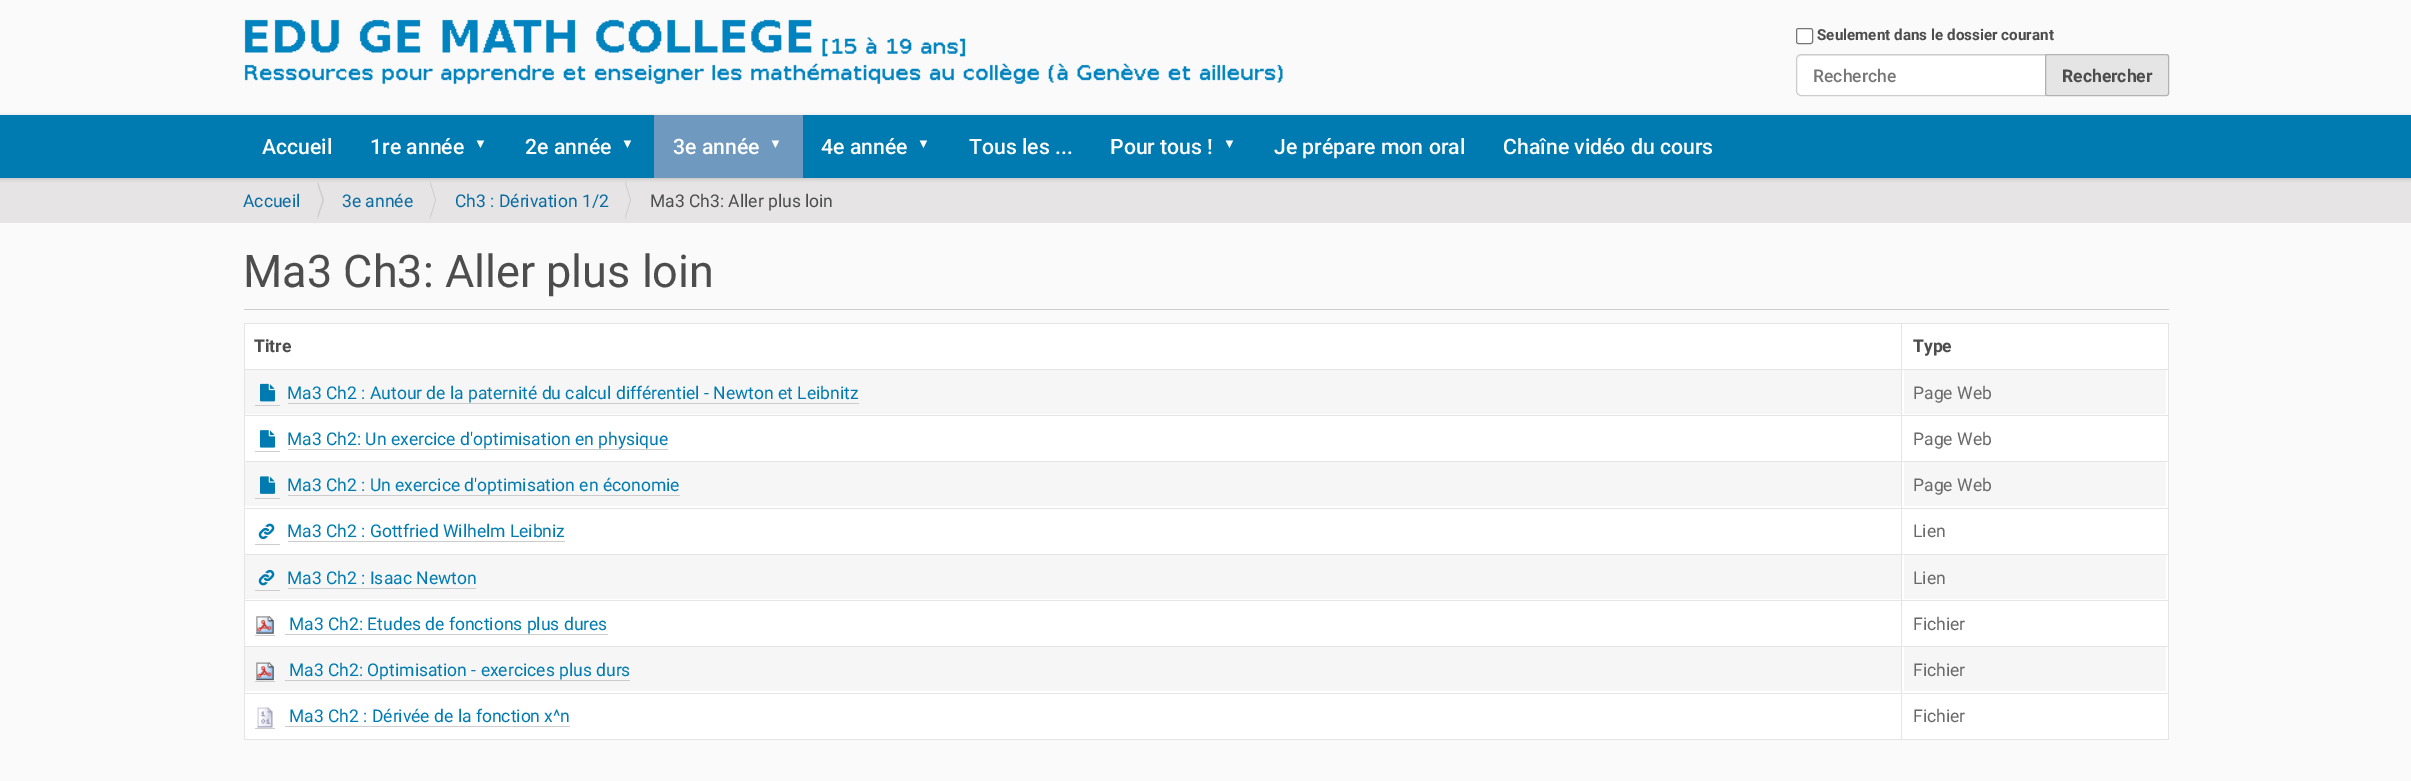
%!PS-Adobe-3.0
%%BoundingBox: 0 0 2411 781
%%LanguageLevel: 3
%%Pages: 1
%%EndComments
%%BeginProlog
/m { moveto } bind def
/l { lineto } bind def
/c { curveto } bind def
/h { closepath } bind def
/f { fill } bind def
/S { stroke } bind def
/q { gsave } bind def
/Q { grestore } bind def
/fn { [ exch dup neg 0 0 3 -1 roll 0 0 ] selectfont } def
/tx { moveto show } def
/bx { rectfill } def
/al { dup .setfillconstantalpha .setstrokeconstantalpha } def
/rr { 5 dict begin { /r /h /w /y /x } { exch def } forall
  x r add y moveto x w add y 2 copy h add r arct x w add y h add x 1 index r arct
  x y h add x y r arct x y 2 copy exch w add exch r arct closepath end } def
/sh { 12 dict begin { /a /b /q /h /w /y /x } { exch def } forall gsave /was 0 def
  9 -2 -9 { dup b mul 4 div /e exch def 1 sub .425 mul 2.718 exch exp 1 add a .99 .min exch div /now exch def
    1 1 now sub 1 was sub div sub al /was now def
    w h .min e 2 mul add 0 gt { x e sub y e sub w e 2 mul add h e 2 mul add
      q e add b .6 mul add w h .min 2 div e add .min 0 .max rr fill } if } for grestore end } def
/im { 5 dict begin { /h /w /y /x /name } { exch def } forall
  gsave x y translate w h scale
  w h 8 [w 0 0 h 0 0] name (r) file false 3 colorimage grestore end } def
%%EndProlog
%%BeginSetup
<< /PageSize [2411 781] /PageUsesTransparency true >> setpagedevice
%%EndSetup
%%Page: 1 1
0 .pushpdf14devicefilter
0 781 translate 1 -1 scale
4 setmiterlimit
0.98 setgray
0 0 2411 781 bx
(image0.raw) 244 19 1039 65 im
1 setgray
1796.5 28.5 16 15 2 rr q f Q
0.463 setgray
S
/Roboto-Bold 15.2 fn
0.302 setgray
(Seulement dans le dossier courant) 1817 40 tx
1 setgray
1801 54 m 2046 54 l 2046 96 l 1801 96 l 1798 96 1796 94 1796 91 c 1796 59 l 1796 56 1798 54 1801 54 c h f
0.925 setgray
1801 56 m 2045 56 l 2045 55 l 1802 55 l 1800 55 1798 57 1798 59 c 1798 60 l 1798 58 1799 56 1801 56 c h f
0.8 setgray
1801 54.5 m 2045.5 54.5 l 2045.5 95.5 l 1801 95.5 l 1798.5 95.5 1796.5 93.5 1796.5 91 c 1796.5 59 l 1796.5 56.5 1798.5 54.5 1801 54.5 c h S
/Roboto-Medium 17.5 fn
0.467 setgray
(Recherche) 1813 82 tx
0.898 setgray
2045.5 54.5 123 41 2 rr q f Q
0.698 setgray
S
/Roboto-Bold 17.5 fn
0.302 setgray
(Rechercher) 2062 82 tx
0.902 0.894 0.894 setrgbcolor
0 178 2411 45 bx
0 setgray
0 116 2411 63 0 2 0.17 sh
0 0.482 0.694 setrgbcolor
0 115 2411 63 bx
/Roboto-Medium 21.25 fn
1 setgray
(Accueil) 262 154 tx
(1re année) 370 154 tx
/LiberationSans-Bold 13 fn
(▼) 474 148 tx
/Roboto-Medium 21.25 fn
(2e année) 525 154 tx
/LiberationSans-Bold 13 fn
(▼) 621 148 tx
0.439 0.6 0.749 setrgbcolor
654 115 149 63 bx
/Roboto-Medium 21.25 fn
1 setgray
(3e année) 673 154 tx
/LiberationSans-Bold 13 fn
(▼) 769 148 tx
/Roboto-Medium 21.25 fn
(4e année) 821 154 tx
/LiberationSans-Bold 13 fn
(▼) 917 148 tx
/Roboto-Medium 21.25 fn
(Tous les ...) 969 154 tx
(Pour tous !) 1110 154 tx
/LiberationSans-Bold 13 fn
(▼) 1223 148 tx
/Roboto-Medium 21.25 fn
(Je prépare mon oral) 1274 154 tx
(Chaîne vidéo du cours) 1503 154 tx
/Roboto-Regular 17.5 fn
0.031 0.424 0.639 setrgbcolor
(Accueil) 243 207 tx
0.8 setgray
317.5 219 m 317.5 181 l 324 200 l h f
0.902 0.894 0.894 setrgbcolor
316 219 m 316 181 l 322.5 200 l h f
0.031 0.424 0.639 setrgbcolor
(3e année) 342 207 tx
0.8 setgray
430 219 m 430 181 l 436 200 l h f
0.902 0.894 0.894 setrgbcolor
429 219 m 429 181 l 435 200 l h f
0.031 0.424 0.639 setrgbcolor
(Ch3 : Dérivation 1/2) 455 207 tx
0.8 setgray
625 219 m 625 181 l 631 200 l h f
0.902 0.894 0.894 setrgbcolor
624 219 m 624 181 l 630 200 l h f
0.302 setgray
(Ma3 Ch3: Aller plus loin) 650 207 tx
0.8 setgray
244 309 1925 1 bx
/Roboto-Regular 45 fn
0.302 setgray
(Ma3 Ch3: Aller plus loin) 243 287 tx
1 setgray
244 323 1925 417 5 rr f
0.898 setgray
244 323 1925 1 bx
2168 323 1 417 bx
244 739 1925 1 bx
244 323 1 417 bx
1901 693 1 47 bx
1901 693 268 1 bx
1901 646 1 48 bx
1901 646 268 1 bx
1901 600 1 48 bx
1901 600 268 1 bx
1901 554 1 47 bx
1901 554 268 1 bx
1901 508 1 47 bx
1901 508 268 1 bx
1901 461 1 48 bx
1901 461 268 1 bx
1901 415 1 48 bx
1901 415 268 1 bx
1901 369 1 47 bx
1901 369 268 1 bx
1901 323 1 47 bx
244 369 1659 1 bx
/Roboto-Bold 17.5 fn
0.302 setgray
(Titre) 254 352 tx
(Type) 1913 352 tx
0.965 setgray
245 370 1656 44 bx
0.898 setgray
244 415 1659 1 bx
0.8 setgray
255 405 25 1 bx
288 403 571 1 bx
(image1.raw) 260 383 15 19 im
/Roboto-Regular 17.5 fn
0 0.482 0.694 setrgbcolor
(Ma3 Ch2 : Autour de la paternité du calcul différentiel - Newton et Leibnitz) 287 399 tx
0.965 setgray
1904 370 262 44 bx
0.412 setgray
(Page Web) 1913 399 tx
0.898 setgray
244 461 1659 1 bx
0.8 setgray
255 451 25 1 bx
288 449 380 1 bx
(image2.raw) 260 430 15 18 im
0 0.482 0.694 setrgbcolor
(Ma3 Ch2: Un exercice d'optimisation en physique) 287 445 tx
0.412 setgray
(Page Web) 1913 445 tx
0.965 setgray
245 462 1656 44 bx
0.898 setgray
244 508 1659 1 bx
0.8 setgray
255 498 25 1 bx
288 495 392 1 bx
(image3.raw) 260 476 15 18 im
0 0.482 0.694 setrgbcolor
(Ma3 Ch2 : Un exercice d'optimisation en économie) 287 491 tx
0.965 setgray
1904 462 262 44 bx
0.412 setgray
(Page Web) 1913 491 tx
0.898 setgray
244 554 1659 1 bx
0.8 setgray
255 544 25 1 bx
288 541 277 1 bx
(image4.raw) 258 523 17 17 im
0 0.482 0.694 setrgbcolor
(Ma3 Ch2 : Gottfried Wilhelm Leibniz) 287 537 tx
0.412 setgray
(Lien) 1913 537 tx
0.965 setgray
245 555 1656 44 bx
0.898 setgray
244 600 1659 1 bx
0.8 setgray
255 590 25 1 bx
288 588 188 1 bx
(image5.raw) 258 569 17 17 im
0 0.482 0.694 setrgbcolor
(Ma3 Ch2 : Isaac Newton) 287 584 tx
0.965 setgray
1904 555 262 44 bx
0.412 setgray
(Lien) 1913 584 tx
0.898 setgray
244 646 1659 1 bx
(image6.raw) 256 616 18 18 im
0 0.482 0.694 setrgbcolor
(Ma3 Ch2: Etudes de fonctions plus dures) 289 630 tx
0.8 setgray
285 634 323 1 bx
255 635 20 1 bx
0.412 setgray
(Fichier) 1913 630 tx
0.965 setgray
245 647 1656 44 bx
0.898 setgray
244 693 1659 1 bx
(image7.raw) 256 662 18 19 im
0 0.482 0.694 setrgbcolor
(Ma3 Ch2: Optimisation - exercices plus durs) 289 676 tx
0.8 setgray
285 680 345 1 bx
255 681 20 1 bx
0.965 setgray
1904 647 262 44 bx
0.412 setgray
(Fichier) 1913 676 tx
(image8.raw) 257 707 16 21 im
0 0.482 0.694 setrgbcolor
(Ma3 Ch2 : Dérivée de la fonction x^n) 289 722 tx
0.8 setgray
285 726 285 1 bx
255 728 20 1 bx
0.412 setgray
(Fichier) 1913 722 tx
.poppdf14devicefilter showpage
%%EOF
